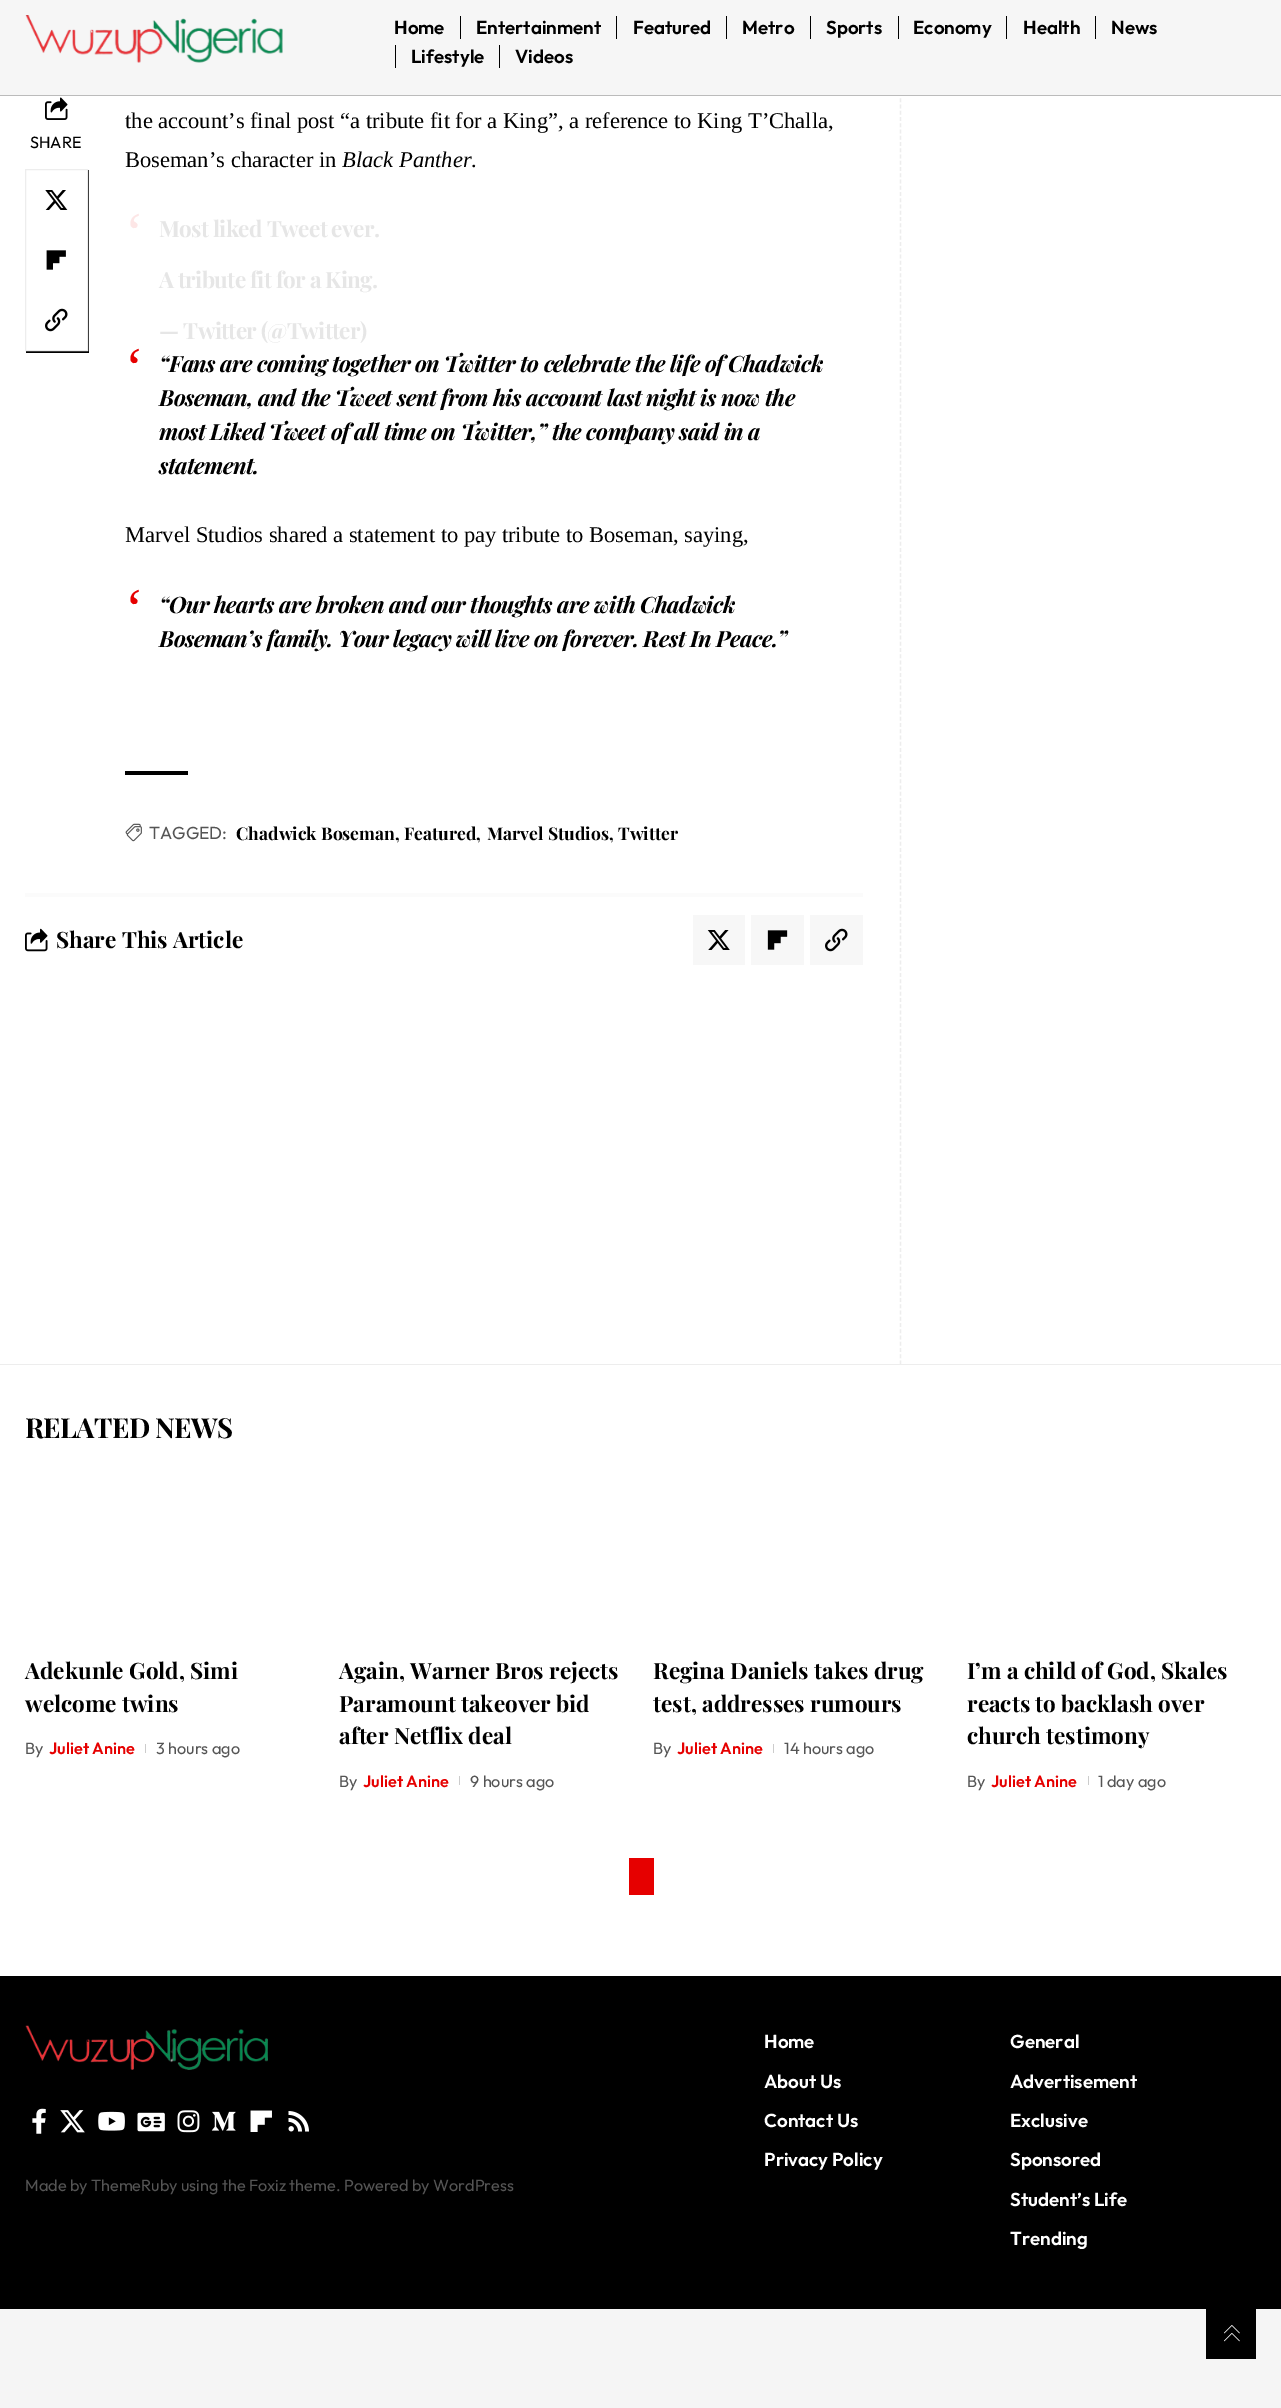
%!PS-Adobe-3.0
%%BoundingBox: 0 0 1281 2408
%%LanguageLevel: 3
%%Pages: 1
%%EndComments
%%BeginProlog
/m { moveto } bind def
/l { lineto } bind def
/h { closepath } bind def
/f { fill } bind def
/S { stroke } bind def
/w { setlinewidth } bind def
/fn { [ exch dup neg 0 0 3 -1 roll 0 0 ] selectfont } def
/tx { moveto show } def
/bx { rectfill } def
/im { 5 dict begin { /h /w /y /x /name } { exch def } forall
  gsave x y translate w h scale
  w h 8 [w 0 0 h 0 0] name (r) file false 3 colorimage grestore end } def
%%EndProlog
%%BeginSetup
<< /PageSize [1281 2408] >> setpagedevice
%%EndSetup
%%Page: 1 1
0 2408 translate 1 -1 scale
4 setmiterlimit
1 setgray
0 0 1281 2408 bx
0.929 setgray
1.2 w
[3.75 2.5] 0 setdash
900.5 -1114 m 900.5 1364 l S
0.965 setgray
0 0 1281 95 bx
0.733 setgray
0 95 1281 1 bx
(image0.raw) 25 15 258 48 im
/Outfit-SemiBold 18.75 fn
0 setgray
(Home) 394 34 tx
460 16 1 23 bx
(Entertainment) 476 34 tx
616 16 1 23 bx
(Featured) 633 34 tx
726 16 1 23 bx
(Metro) 742 34 tx
810 16 1 23 bx
(Sports) 826 34 tx
898 16 1 23 bx
(Economy) 913 34 tx
1006 16 1 23 bx
(Health) 1023 34 tx
1095 16 1 23 bx
(News) 1111 34 tx
395 45 1 23 bx
(Lifestyle) 411 63 tx
499 45 1 23 bx
(Videos) 515 63 tx
(image1.raw) 45 97 23 23 im
/Outfit-Regular 16.25 fn
(SHARE) 30 148 tx
26 351 m 26 353 l 89 353 l 89 170 l 88 170 l 88 351 l h f
0.929 setgray
1 w
[] 0 setdash
25.5 169.5 62 181 rectstroke
(image2.raw) 45 190 23 20 im
(image3.raw) 46 250 20 20 im
(image4.raw) 45 308 23 24 im
/LiberationSerif-Regular 22.5 fn
0 setgray
(the account’s final post “a tribute fit for a King”, a reference to King T’Challa,) 125 128 tx
(Boseman’s character in) 125 167 tx
/LiberationSerif-Italic 22.5 fn
(Black Panther) 342 167 tx
/LiberationSerif-Regular 22.5 fn
(.) 471 167 tx
/LiberationSerif-Regular 56 fn
0.992 0.902 0.902 setrgbcolor
(‘) 125 251 tx
/PlayfairDisplay-Bold 22.5 fn
0.902 setgray
159 237 m -0.62 0 (Most liked Tweet ever.) ashow
159 288 m -0.62 0 (A tribute fit for a King.) ashow
159 339 m -0.62 0 (— Twitter \(@Twitter\)) ashow
/LiberationSerif-Regular 56 fn
0.902 0 0 setrgbcolor
(‘) 125 386 tx
/PlayfairDisplay-BoldItalic 22.5 fn
0 setgray
159 372 m -0.62 0 (“Fans are coming together on Twitter to celebrate the life of Chadwick) ashow
159 406 m -0.62 0 (Boseman, and the Tweet sent from his account last night is now the) ashow
159 440 m -0.62 0 (most Liked Tweet of all time on Twitter,” the company said in a) ashow
159 474 m -0.62 0 (statement.) ashow
/LiberationSerif-Regular 22.5 fn
(Marvel Studios shared a statement to pay tribute to Boseman, saying,) 125 542 tx
/LiberationSerif-Regular 56 fn
0.902 0 0 setrgbcolor
(‘) 125 627 tx
/PlayfairDisplay-BoldItalic 22.5 fn
0 setgray
159 613 m -0.62 0 (“Our hearts are broken and our thoughts are with Chadwick) ashow
159 647 m -0.62 0 (Boseman’s family. Your legacy will live on forever. Rest In Peace.”) ashow
125 771 63 4 bx
(image5.raw) 125 823 17 19 im
/Outfit-Regular 17.5 fn
0.333 setgray
(TAGGED:) 149 839 tx
/PlayfairDisplay-Bold 17.5 fn
0 setgray
(Chadwick Boseman,) 236 840 tx
(Featured,) 404 840 tx
(Marvel Studios,) 487 840 tx
(Twitter) 618 840 tx
0.984 setgray
25 893 838 4 bx
(image6.raw) 25 928 23 24 im
/PlayfairDisplay-Bold 22.5 fn
0 setgray
(Share This Article) 56 948 tx
0.969 setgray
693 915 52 50 bx
(image7.raw) 707 930 23 20 im
751 915 53 50 bx
(image8.raw) 767 930 21 20 im
810 915 53 50 bx
(image9.raw) 825 928 23 24 im
0.929 setgray
0 1364 1281 1 bx
/PlayfairDisplay-Bold 27.5 fn
0 setgray
25 1438 m -0.62 0 (RELATED NEWS) ashow
/PlayfairDisplay-Bold 22.5 fn
(Adekunle Gold, Simi) 25 1679 tx
(welcome twins) 25 1712 tx
/Outfit-Regular 16.25 fn
0.333 setgray
(By) 25 1754 tx
/Outfit-SemiBold 16.25 fn
0.902 0 0 setrgbcolor
(Juliet Anine) 49 1754 tx
0.8 setgray
145 1744 1 9 bx
/Outfit-Regular 16.25 fn
0.333 setgray
(3 hours ago) 156 1754 tx
/PlayfairDisplay-Bold 22.5 fn
0 setgray
(Again, Warner Bros rejects) 339 1679 tx
(Paramount takeover bid) 339 1712 tx
(after Netflix deal) 339 1744 tx
/Outfit-Regular 16.25 fn
0.333 setgray
(By) 339 1787 tx
/Outfit-SemiBold 16.25 fn
0.902 0 0 setrgbcolor
(Juliet Anine) 363 1787 tx
0.8 setgray
459 1776 1 9 bx
/Outfit-Regular 16.25 fn
0.333 setgray
(9 hours ago) 470 1787 tx
/PlayfairDisplay-Bold 22.5 fn
0 setgray
(Regina Daniels takes drug) 653 1679 tx
(test, addresses rumours) 653 1712 tx
/Outfit-Regular 16.25 fn
0.333 setgray
(By) 653 1754 tx
/Outfit-SemiBold 16.25 fn
0.902 0 0 setrgbcolor
(Juliet Anine) 677 1754 tx
0.8 setgray
773 1744 1 9 bx
/Outfit-Regular 16.25 fn
0.333 setgray
(14 hours ago) 784 1754 tx
/PlayfairDisplay-Bold 22.5 fn
0 setgray
(I’m a child of God, Skales) 967 1679 tx
(reacts to backlash over) 967 1712 tx
(church testimony) 967 1744 tx
/Outfit-Regular 16.25 fn
0.333 setgray
(By) 967 1787 tx
/Outfit-SemiBold 16.25 fn
0.902 0 0 setrgbcolor
(Juliet Anine) 991 1787 tx
0.8 setgray
1088 1776 1 9 bx
/Outfit-Regular 16.25 fn
0.333 setgray
(1 day ago) 1098 1787 tx
0.902 0 0 setrgbcolor
629 1858 25 37 bx
0 setgray
0 1976 1281 333 bx
(image10.raw) 25 2025 243 45 im
(image11.raw) 32 2108 14 26 im
(image12.raw) 60 2110 25 23 im
(image13.raw) 98 2111 27 20 im
(image14.raw) 137 2112 28 20 im
(image15.raw) 177 2110 23 23 im
(image16.raw) 211 2111 25 20 im
(image17.raw) 250 2110 22 22 im
(image18.raw) 288 2111 21 21 im
0.333 setgray
(Made by ThemeRuby using the Foxiz theme. Powered by WordPress) 25 2191 tx
/Outfit-SemiBold 18.75 fn
1 setgray
(Home) 764 2048 tx
(About Us) 764 2088 tx
(Contact Us) 764 2127 tx
(Privacy Policy) 764 2166 tx
(General) 1010 2048 tx
(Advertisement) 1010 2088 tx
(Exclusive) 1010 2127 tx
(Sponsored) 1010 2166 tx
(Student’s Life) 1010 2206 tx
(Trending) 1010 2245 tx
0.961 setgray
0 2309 1281 99 bx
0 setgray
1206 2309 50 50 bx
(image19.raw) 1224 2325 16 17 im
showpage
%%EOF
